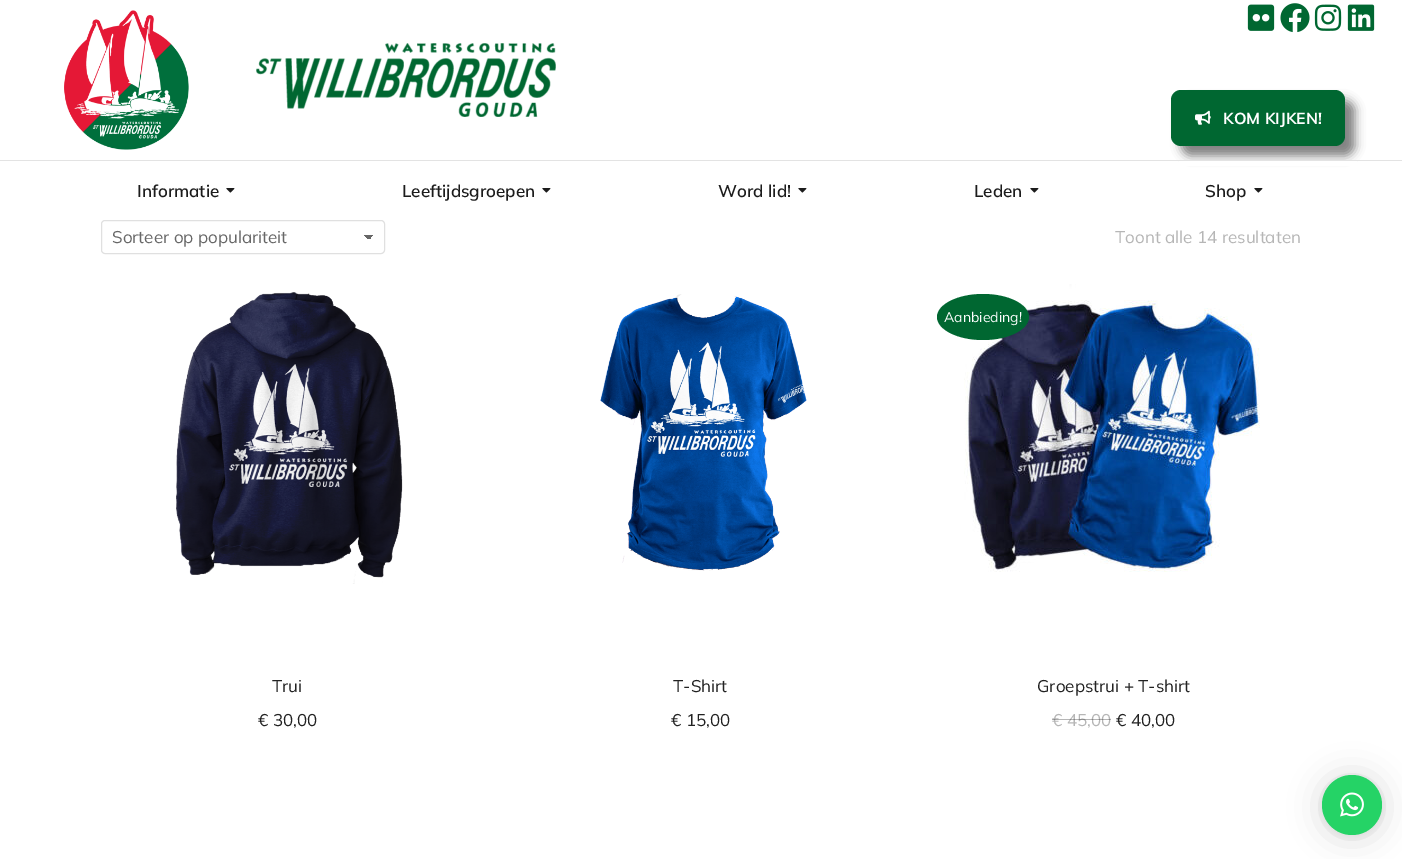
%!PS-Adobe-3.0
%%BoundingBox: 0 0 1402 859
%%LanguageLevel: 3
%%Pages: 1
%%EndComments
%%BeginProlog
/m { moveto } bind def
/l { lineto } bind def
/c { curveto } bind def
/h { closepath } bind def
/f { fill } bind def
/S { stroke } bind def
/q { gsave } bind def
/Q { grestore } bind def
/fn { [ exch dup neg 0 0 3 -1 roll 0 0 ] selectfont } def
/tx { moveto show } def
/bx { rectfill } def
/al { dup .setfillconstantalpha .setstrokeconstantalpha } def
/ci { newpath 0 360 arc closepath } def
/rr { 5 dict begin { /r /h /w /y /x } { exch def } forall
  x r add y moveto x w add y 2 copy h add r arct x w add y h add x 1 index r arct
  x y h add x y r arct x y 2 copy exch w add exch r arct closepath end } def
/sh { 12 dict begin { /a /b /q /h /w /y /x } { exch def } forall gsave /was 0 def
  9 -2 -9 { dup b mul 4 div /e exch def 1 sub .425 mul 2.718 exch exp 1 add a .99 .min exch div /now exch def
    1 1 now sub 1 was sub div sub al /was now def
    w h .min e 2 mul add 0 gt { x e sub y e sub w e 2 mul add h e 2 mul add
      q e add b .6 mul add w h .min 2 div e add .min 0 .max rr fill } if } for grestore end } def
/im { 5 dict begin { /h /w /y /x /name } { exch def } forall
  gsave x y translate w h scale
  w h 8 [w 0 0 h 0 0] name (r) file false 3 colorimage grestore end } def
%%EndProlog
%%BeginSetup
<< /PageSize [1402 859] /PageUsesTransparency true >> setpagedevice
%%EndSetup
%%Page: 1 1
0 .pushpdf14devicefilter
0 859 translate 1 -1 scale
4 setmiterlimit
1 setgray
0 0 1402 859 bx
(image0.raw) 64 10 125 140 im
(image1.raw) 256 43 300 74 im
(image2.raw) 1247 4 28 27 im
(image3.raw) 1280 3 30 30 im
(image4.raw) 1314 4 28 27 im
(image5.raw) 1347 4 28 27 im
0 setgray
1181 100 174 56 10 5 0.5 sh
0 0.404 0.192 setrgbcolor
1171 90 174 56 10 rr f
(image6.raw) 1195 110 16 15 im
/Mulish-Bold 16 fn
1 setgray
(KOM KIJKEN!) 1223 124 tx
1179 161 178 5 bx
0.89 setgray
0 160 1402 1 bx
/Mulish-SemiBold 17 fn
0.11 setgray
(Informatie) 137 197 tx
(image7.raw) 226 188 9 5 im
(Leeftijdsgroepen) 402 197 tx
(image7.raw) 542 188 9 5 im
(Word lid!) 718 197 tx
(image7.raw) 798 188 9 5 im
(Leden) 974 197 tx
(image7.raw) 1030 188 9 5 im
(Shop) 1205 197 tx
(image7.raw) 1254 188 9 5 im
q 369 235 m 374 235 l 374 239 l 369 239 l h clip newpath
<< /ShadingType 2 /ColorSpace /DeviceRGB /Coords [369 235 374 240] /Extend [true true] /Function << /FunctionType 3 /Domain [0 1] /Functions [<< /FunctionType 2 /Domain [0 1] /C0 [0.404 0.404 0.404] /C1 [0.404 0.404 0.404] /N 1 >> << /FunctionType 2 /Domain [0 1] /C0 [1 1 1] /C1 [1 1 1] /N 1 >>] /Bounds [0.5] /Encode [0 1 0 1] >> >> shfill Q
q 364 235 m 369 235 l 369 239 l 364 239 l h clip newpath
<< /ShadingType 2 /ColorSpace /DeviceRGB /Coords [364 240 369 235] /Extend [true true] /Function << /FunctionType 3 /Domain [0 1] /Functions [<< /FunctionType 2 /Domain [0 1] /C0 [1 1 1] /C1 [1 1 1] /N 1 >> << /FunctionType 2 /Domain [0 1] /C0 [0.404 0.404 0.404] /C1 [0.404 0.404 0.404] /N 1 >>] /Bounds [0.5] /Encode [0 1 0 1] >> >> shfill Q
0.878 setgray
101.5 220.5 283 33 3.5 rr S
/Mulish-Regular 17 fn
0.404 setgray
(Sorteer op populariteit) 112 243 tx
0.714 setgray
(Toont alle 14 resultaten) 1115 243 tx
(image8.raw) 176 292 227 292 im
0.133 setgray
(Trui) 272 692 tx
(€ 30,00) 258 726 tx
(image9.raw) 600 294 207 277 im
(T-Shirt) 673 692 tx
(€ 15,00) 671 726 tx
(image10.raw) 964 284 296 288 im
0 0.404 0.192 setrgbcolor
983 294 m 1008.5 294 1029 304.5 1029 317 c 1029 329.5 1008.5 340 983 340 c 957.5 340 937 329.5 937 317 c 937 304.5 957.5 294 983 294 c h f
/Mulish-Regular 14 fn
1 setgray
(Aanbieding!) 944 322 tx
/Mulish-Regular 17 fn
0.133 setgray
(Groepstrui + T-shirt) 1037 692 tx
0.714 setgray
(€ 45,00) 1052 726 tx
0.33 al
0.133 setgray
1052 719 10 1 bx
1062 719 49 1 bx
1 al
(€ 40,00) 1116 726 tx
0 setgray
1322 777 60 60 30 16 0.16 sh
1322 776 60 60 30 3 0.06 sh
0.145 0.827 0.4 setrgbcolor
1352 805 30 ci f
(image11.raw) 1340 792 24 25 im
.poppdf14devicefilter showpage
%%EOF
